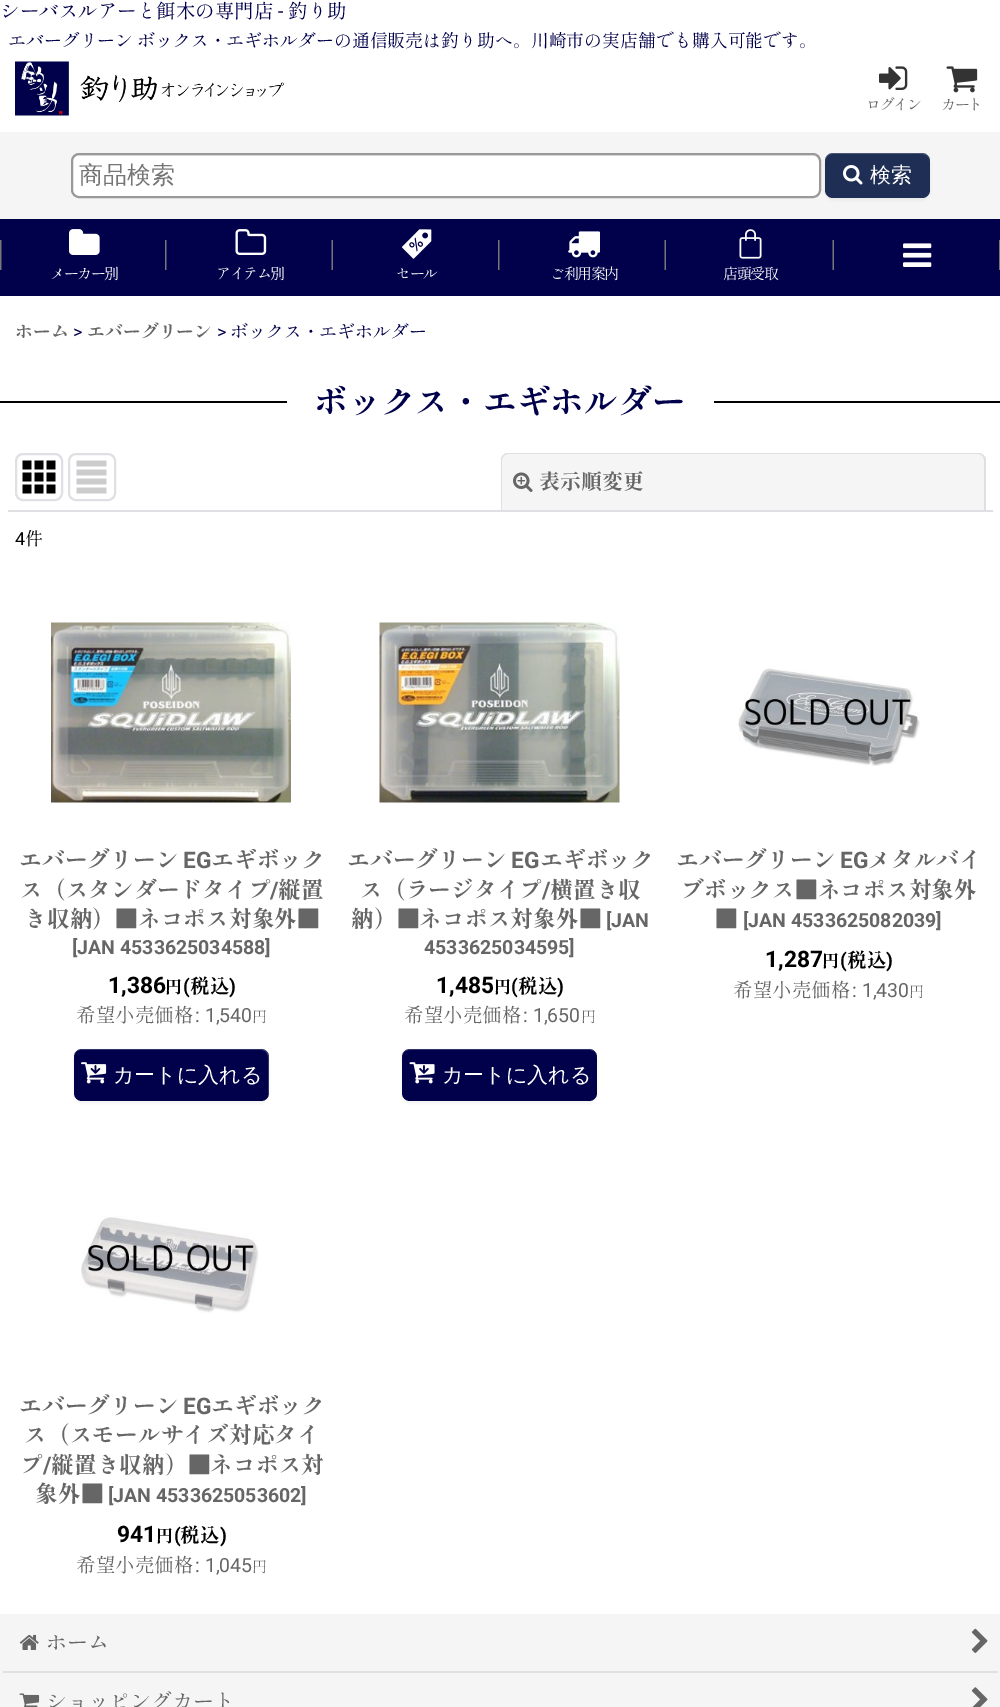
%!PS-Adobe-3.0
%%BoundingBox: 0 0 1000 1707
%%LanguageLevel: 3
%%Pages: 1
%%EndComments
%%BeginProlog
/m { moveto } bind def
/l { lineto } bind def
/c { curveto } bind def
/h { closepath } bind def
/f { fill } bind def
/S { stroke } bind def
/w { setlinewidth } bind def
/fn { [ exch dup neg 0 0 3 -1 roll 0 0 ] selectfont } def
/tx { moveto show } def
/bx { rectfill } def
/al { dup .setfillconstantalpha .setstrokeconstantalpha } def
/rr { 5 dict begin { /r /h /w /y /x } { exch def } forall
  x r add y moveto x w add y 2 copy h add r arct x w add y h add x 1 index r arct
  x y h add x y r arct x y 2 copy exch w add exch r arct closepath end } def
/sh { 12 dict begin { /a /b /q /h /w /y /x } { exch def } forall gsave /was 0 def
  9 -2 -9 { dup b mul 4 div /e exch def 1 sub .425 mul 2.718 exch exp 1 add a .99 .min exch div /now exch def
    1 1 now sub 1 was sub div sub al /was now def
    w h .min e 2 mul add 0 gt { x e sub y e sub w e 2 mul add h e 2 mul add
      q e add b .6 mul add w h .min 2 div e add .min 0 .max rr fill } if } for grestore end } def
/im { 5 dict begin { /h /w /y /x /name } { exch def } forall
  gsave x y translate w h scale
  w h 8 [w 0 0 h 0 0] name (r) file false 3 colorimage grestore end } def
%%EndProlog
%%BeginSetup
<< /PageSize [1000 1707] /PageUsesTransparency true >> setpagedevice
%%EndSetup
%%Page: 1 1
0 .pushpdf14devicefilter
0 1707 translate 1 -1 scale
4 setmiterlimit
1 setgray
0 0 1000 1707 bx
/ShipporiMinchoB1-Regular 19.5 fn
0.004 0.004 0.294 setrgbcolor
(シーバスルアーと餌木の専門店) 0 18 tx
/Roboto-Regular 19.5 fn
(-) 278 18 tx
/ShipporiMinchoB1-Regular 19.5 fn
(釣り助) 288 18 tx
/ShipporiMinchoB1-Regular 17.9 fn
8 47 m -1 0 32 (エバーグリーン ボックス・エギホルダーの通信販売は釣り助へ。川崎市の実店舗でも購入可能です。) widthshow
(image0.raw) 15 61 269 55 im
(image1.raw) 879 66 29 24 im
/ShipporiMinchoB1-Regular 15 fn
0.4 setgray
866 110 m -1.5 0 (ログイン) ashow
(image2.raw) 946 66 32 27 im
941 110 m -1.5 0 (カート) ashow
0.961 setgray
0 132 1000 87 bx
1 setgray
71 153 750 45 8 rr f
0.925 setgray
78 156 m 813 156 l 816 156 819 159 819 162 c 819 161 l 819 158 816 155 813 155 c 78 155 l 75 155 72 158 72 161 c 72 162 l 72 159 75 156 78 156 c h f
0.6 setgray
2 w
72 154 748 43 7 rr S
/WenQuanYiZenHei-Medium 24 fn
0.459 setgray
(商品検索) 79 183 tx
0 setgray
825 155 105 45 8 1.5 0.05 sh
0.122 0.18 0.333 setrgbcolor
825 153 105 45 8 rr f
0.2 al
1 setgray
832 154 m 922 154 l 927 154 930 158 930 162 c 930 149 915 153 907 153 c 848 153 l 840 153 825 149 825 162 c 825 158 828 154 832 154 c h f
1 al
(image3.raw) 843 165 20 20 im
/WenQuanYiZenHei-Medium 21 fn
(検索) 870 182 tx
0.004 0.004 0.294 setrgbcolor
0 219 1000 77 bx
0.467 setgray
999 240 1 30 bx
(image4.raw) 903 243 29 24 im
(image5.raw) 0 240 167 30 im
(image6.raw) 69 229 31 26 im
/ShipporiMinchoB1-Regular 15 fn
1 setgray
50 279 m -1.5 0 (メーカー別) ashow
(image7.raw) 331 240 2 30 im
(image8.raw) 235 229 32 26 im
216 279 m -1.5 0 (アイテム別) ashow
(image9.raw) 498 240 2 30 im
(image10.raw) 402 229 30 30 im
396 279 m -1.5 0 (セール) ashow
(image7.raw) 664 240 2 30 im
(image11.raw) 568 231 32 27 im
550 279 m -1.5 0 (ご利用案内) ashow
(image7.raw) 832 240 2 30 im
(image12.raw) 739 229 23 30 im
723 279 m -1.5 0 (店頭受取) ashow
/ShipporiMinchoB1-Bold 17.9 fn
0.4 setgray
(ホーム) 15 338 tx
/Roboto-Regular 17.9 fn
0.004 0.004 0.294 setrgbcolor
(>) 73 338 tx
/ShipporiMinchoB1-Bold 17.9 fn
0.4 setgray
(エバーグリーン) 87 338 tx
/Roboto-Regular 17.9 fn
0.004 0.004 0.294 setrgbcolor
(>) 217 338 tx
/ShipporiMinchoB1-Regular 17.9 fn
(ボックス・エギホルダー) 230 338 tx
0 setgray
0 401 1000 2 bx
1 setgray
287 401 427 2 bx
/ShipporiMinchoB1-Bold 33.75 fn
0.004 0.004 0.294 setrgbcolor
(ボックス・エギホルダー) 314 414 tx
0.878 0.875 0.89 setrgbcolor
8 510 985 2 bx
16 454 46 46 7 rr S
(image13.raw) 22 460 34 34 im
69 454 46 46 7 rr S
(image14.raw) 76 460 31 34 im
0.961 setgray
509 453 m 978 453 l 982.5 453 986 456.5 986 461 c 986 510 l 501 510 l 501 461 l 501 456.5 504.5 453 509 453 c h f
0.878 0.875 0.89 setrgbcolor
508 453 m 978 453 l 982 453 986 456 986 460 c 986 510 l 501 510 l 501 460 l 501 456 504 453 508 453 c h 508 454 m 978 454 l 981 454 984 457 984 460 c 984 510 l 502 510 l 502 460 l 502 457 505 454 508 454 c h eofill
(image15.raw) 513 472 20 20 im
/ShipporiMinchoB1-Bold 21 fn
0.4 setgray
(表示順変更) 539 489 tx
/Roboto-Regular 18 fn
0 setgray
(4) 15 545 tx
/ShipporiMinchoB1-Regular 18 fn
(件) 25 545 tx
(image16.raw) 51 622 240 181 im
/ShipporiMinchoB1-Bold 22.75 fn
0.4 setgray
(エバーグリーン) 19 868 tx
/Roboto-Bold 22.75 fn
(EG) 183 868 tx
/ShipporiMinchoB1-Bold 22.75 fn
(エギボック) 211 868 tx
(ス（スタンダードタイプ) 20 898 tx
/Roboto-Bold 22.75 fn
(/) 270 898 tx
/ShipporiMinchoB1-Bold 22.75 fn
(縦置) 278 898 tx
(き収納）■ネコポス対象外■) 24 927 tx
/Roboto-Bold 19.5 fn
([JAN 4533625034588]) 72 954 tx
/Roboto-Bold 22.75 fn
0 setgray
(1,386) 108 993 tx
/ShipporiMinchoB1-Bold 17 fn
(円) 165 993 tx
/Roboto-Bold 19.5 fn
(\() 183 993 tx
/ShipporiMinchoB1-Bold 19.5 fn
(税込) 190 993 tx
/Roboto-Bold 19.5 fn
(\)) 229 993 tx
/ShipporiMinchoB1-Regular 19.5 fn
0.4 setgray
(希望小売価格) 76 1022 tx
/Roboto-Regular 19.5 fn
(: 1,540) 195 1022 tx
/ShipporiMinchoB1-Regular 15 fn
(円) 252 1022 tx
0 setgray
74 1050 195 53 8 1.5 0.05 sh
0.004 0.004 0.294 setrgbcolor
74 1049 195 52 8 rr f
0.2 al
1 setgray
81 1050 m 261 1050 l 265 1050 268 1053 268 1058 c 268 1095 l 268 1098 l 268 1096 269 1095 269 1093 c 269 1057 l 269 1053 265 1049 261 1049 c 82 1049 l 78 1049 74 1053 74 1057 c 74 1058 l 74 1053 77 1050 81 1050 c h f
1 al
(image17.raw) 81 1062 26 22 im
/WenQuanYiZenHei-Medium 21 fn
(カートに入れる) 113 1082 tx
(image18.raw) 379 622 241 181 im
/ShipporiMinchoB1-Bold 22.75 fn
0.4 setgray
(エバーグリーン) 347 868 tx
/Roboto-Bold 22.75 fn
(EG) 511 868 tx
/ShipporiMinchoB1-Bold 22.75 fn
(エギボック) 540 868 tx
(ス（ラージタイプ) 360 898 tx
/Roboto-Bold 22.75 fn
(/) 542 898 tx
/ShipporiMinchoB1-Bold 22.75 fn
(横置き収) 550 898 tx
(納）■ネコポス対象外■) 351 927 tx
/Roboto-Bold 19.5 fn
([JAN) 606 927 tx
(4533625034595]) 424 954 tx
/Roboto-Bold 22.75 fn
0 setgray
(1,485) 436 993 tx
/ShipporiMinchoB1-Bold 17 fn
(円) 494 993 tx
/Roboto-Bold 19.5 fn
(\() 511 993 tx
/ShipporiMinchoB1-Bold 19.5 fn
(税込) 518 993 tx
/Roboto-Bold 19.5 fn
(\)) 557 993 tx
/ShipporiMinchoB1-Regular 19.5 fn
0.4 setgray
(希望小売価格) 404 1022 tx
/Roboto-Regular 19.5 fn
(: 1,650) 523 1022 tx
/ShipporiMinchoB1-Regular 15 fn
(円) 581 1022 tx
0 setgray
402 1050 195 53 8 1.5 0.05 sh
0.004 0.004 0.294 setrgbcolor
402 1049 195 52 8 rr f
0.2 al
1 setgray
410 1050 m 590 1050 l 594 1050 597 1053 597 1058 c 597 1057 l 597 1053 593 1049 589 1049 c 410 1049 l 406 1049 402 1053 402 1057 c 402 1058 l 402 1053 405 1050 410 1050 c h f
1 al
(image19.raw) 409 1062 26 22 im
/WenQuanYiZenHei-Medium 21 fn
(カートに入れる) 442 1082 tx
(image20.raw) 738 668 182 98 im
/ShipporiMinchoB1-Bold 22.75 fn
0.4 setgray
(エバーグリーン) 676 868 tx
/Roboto-Bold 22.75 fn
(EG) 840 868 tx
/ShipporiMinchoB1-Bold 22.75 fn
(メタルバイ) 868 868 tx
(ブボックス■ネコポス対象外) 681 898 tx
(■) 715 927 tx
/Roboto-Bold 19.5 fn
([JAN 4533625082039]) 743 927 tx
/Roboto-Bold 22.75 fn
0 setgray
(1,287) 765 967 tx
/ShipporiMinchoB1-Bold 17 fn
(円) 822 967 tx
/Roboto-Bold 19.5 fn
(\() 840 967 tx
/ShipporiMinchoB1-Bold 19.5 fn
(税込) 847 967 tx
/Roboto-Bold 19.5 fn
(\)) 886 967 tx
/ShipporiMinchoB1-Regular 19.5 fn
0.4 setgray
(希望小売価格) 733 997 tx
/Roboto-Regular 19.5 fn
(: 1,430) 852 997 tx
/ShipporiMinchoB1-Regular 15 fn
(円) 909 997 tx
(image21.raw) 81 1216 178 97 im
/ShipporiMinchoB1-Bold 22.75 fn
(エバーグリーン) 19 1414 tx
/Roboto-Bold 22.75 fn
(EG) 183 1414 tx
/ShipporiMinchoB1-Bold 22.75 fn
(エギボック) 211 1414 tx
(ス（スモールサイズ対応タイ) 24 1443 tx
(プ) 20 1473 tx
/Roboto-Bold 22.75 fn
(/) 43 1473 tx
/ShipporiMinchoB1-Bold 22.75 fn
(縦置き収納）■ネコポス対) 51 1473 tx
(象外■) 35 1502 tx
/Roboto-Bold 19.5 fn
([JAN 4533625053602]) 108 1502 tx
/Roboto-Bold 22.75 fn
0 setgray
(941) 117 1542 tx
/ShipporiMinchoB1-Bold 17 fn
(円) 156 1542 tx
/Roboto-Bold 19.5 fn
(\() 174 1542 tx
/ShipporiMinchoB1-Bold 19.5 fn
(税込) 180 1542 tx
/Roboto-Bold 19.5 fn
(\)) 220 1542 tx
/ShipporiMinchoB1-Regular 19.5 fn
0.4 setgray
(希望小売価格) 76 1572 tx
/Roboto-Regular 19.5 fn
(: 1,045) 195 1572 tx
/ShipporiMinchoB1-Regular 15 fn
(円) 252 1572 tx
0.961 setgray
0 1614 1000 93 bx
0.878 0.875 0.89 setrgbcolor
3 1671 995 2 bx
(image22.raw) 19 1634 20 16 im
/ShipporiMinchoB1-Regular 21 fn
0.4 setgray
(ホーム) 46 1650 tx
(image23.raw) 971 1628 17 25 im
(image24.raw) 19 1693 21 14 im
(ショッピングカート) 46 1709 tx
(image25.raw) 971 1687 17 20 im
.poppdf14devicefilter showpage
%%EOF
